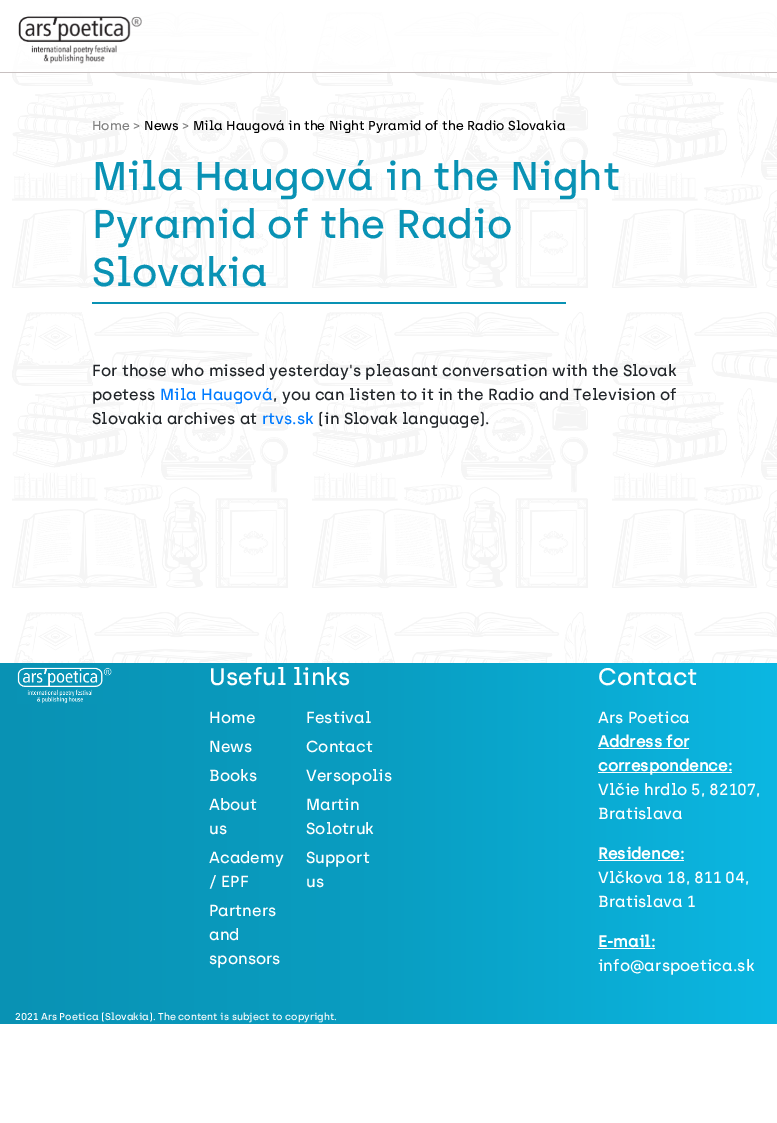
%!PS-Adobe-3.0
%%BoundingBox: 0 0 777 1123
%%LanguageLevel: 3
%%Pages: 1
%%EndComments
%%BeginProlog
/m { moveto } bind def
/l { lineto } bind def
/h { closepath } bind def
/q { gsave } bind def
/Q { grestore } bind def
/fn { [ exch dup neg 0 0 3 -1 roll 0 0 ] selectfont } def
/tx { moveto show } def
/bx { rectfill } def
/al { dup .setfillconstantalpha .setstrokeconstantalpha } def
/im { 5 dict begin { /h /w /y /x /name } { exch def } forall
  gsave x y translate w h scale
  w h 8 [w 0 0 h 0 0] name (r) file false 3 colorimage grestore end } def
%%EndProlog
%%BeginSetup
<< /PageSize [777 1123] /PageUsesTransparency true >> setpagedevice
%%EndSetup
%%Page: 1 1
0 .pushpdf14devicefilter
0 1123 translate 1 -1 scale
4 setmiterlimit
1 setgray
0 0 777 1123 bx
(image1.raw) 12 12 765 651 im
0.8 al
12 12 765 60 bx
1 al
0.78 0.753 0.753 setrgbcolor
0 72 777 1 bx
(image0.raw) 18 16 124 48 im
/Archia-Medium 13 fn
0.502 setgray
(Home >) 92 130 tx
0 setgray
(News) 144 130 tx
0.502 setgray
(>) 182 130 tx
0 setgray
(Mila Haugová in the Night Pyramid of the Radio Slovakia) 193 130 tx
/Archia-Medium 40 fn
0.035 0.573 0.706 setrgbcolor
(Mila Haugová in the Night) 92 190 tx
(Pyramid of the Radio) 92 238 tx
(Slovakia) 92 286 tx
92 302 474 2 bx
/Archia-Medium 16 fn
0.129 0.145 0.161 setrgbcolor
(For those who missed yesterday's pleasant conversation with the Slovak) 92 376 tx
(poetess) 92 400 tx
0 0.482 1 setrgbcolor
(Mila Haugová) 160 400 tx
0.129 0.145 0.161 setrgbcolor
(, you can listen to it in the Radio and Television of) 273 400 tx
(Slovakia archives at) 92 424 tx
0 0.482 1 setrgbcolor
(rtvs.sk) 262 424 tx
0.129 0.145 0.161 setrgbcolor
(\(in Slovak language\).) 318 424 tx
q 0 663 m 777 663 l 777 1024 l 0 1024 l h clip newpath
<< /ShadingType 2 /ColorSpace /DeviceRGB /Coords [0 844 777 844] /Extend [true true] /Function << /FunctionType 3 /Domain [0 1] /Functions [<< /FunctionType 2 /Domain [0 1] /C0 [0.035 0.573 0.706] /C1 [0.035 0.616 0.757] /N 1 >> << /FunctionType 2 /Domain [0 1] /C0 [0.035 0.616 0.757] /C1 [0.047 0.718 0.886] /N 1 >>] /Bounds [0.49] /Encode [0 1 0 1] >> >> shfill Q
(image2.raw) 17 667 95 37 im
/Archia-Medium 24 fn
1 setgray
(Useful links) 209 685 tx
/Archia-Medium 16 fn
(Home) 209 723 tx
(News) 209 752 tx
(Books) 209 781 tx
(About) 209 810 tx
(us) 209 834 tx
(Academy) 209 863 tx
(/ EPF) 209 887 tx
(Partners) 209 916 tx
(and) 209 940 tx
(sponsors) 209 964 tx
(Festival) 306 723 tx
(Contact) 306 752 tx
(Versopolis) 306 781 tx
(Martin) 306 810 tx
(Solotruk) 306 834 tx
(Support) 306 863 tx
(us) 306 887 tx
/Archia-Medium 24 fn
(Contact) 598 685 tx
/Archia-Medium 16 fn
(Ars Poetica) 598 723 tx
/Archia-Bold 16 fn
(Address for) 598 747 tx
598 748 91 1 bx
598 772 134 1 bx
(correspondence:) 598 771 tx
/Archia-Medium 16 fn
(Vlčie hrdlo 5, 82107,) 598 795 tx
(Bratislava) 598 819 tx
/Archia-Bold 16 fn
(Residence:) 598 859 tx
598 860 86 1 bx
/Archia-Medium 16 fn
(Vlčkova 18, 811 04,) 598 883 tx
(Bratislava 1) 598 907 tx
/Archia-Bold 16 fn
(E-mail:) 598 947 tx
598 948 57 1 bx
/Archia-Medium 16 fn
(info@arspoetica.sk) 598 971 tx
/Archia-Medium 10 fn
(2021 Ars Poetica \(Slovakia\). The content is subject to copyright.) 15 1020 tx
.poppdf14devicefilter showpage
%%EOF
